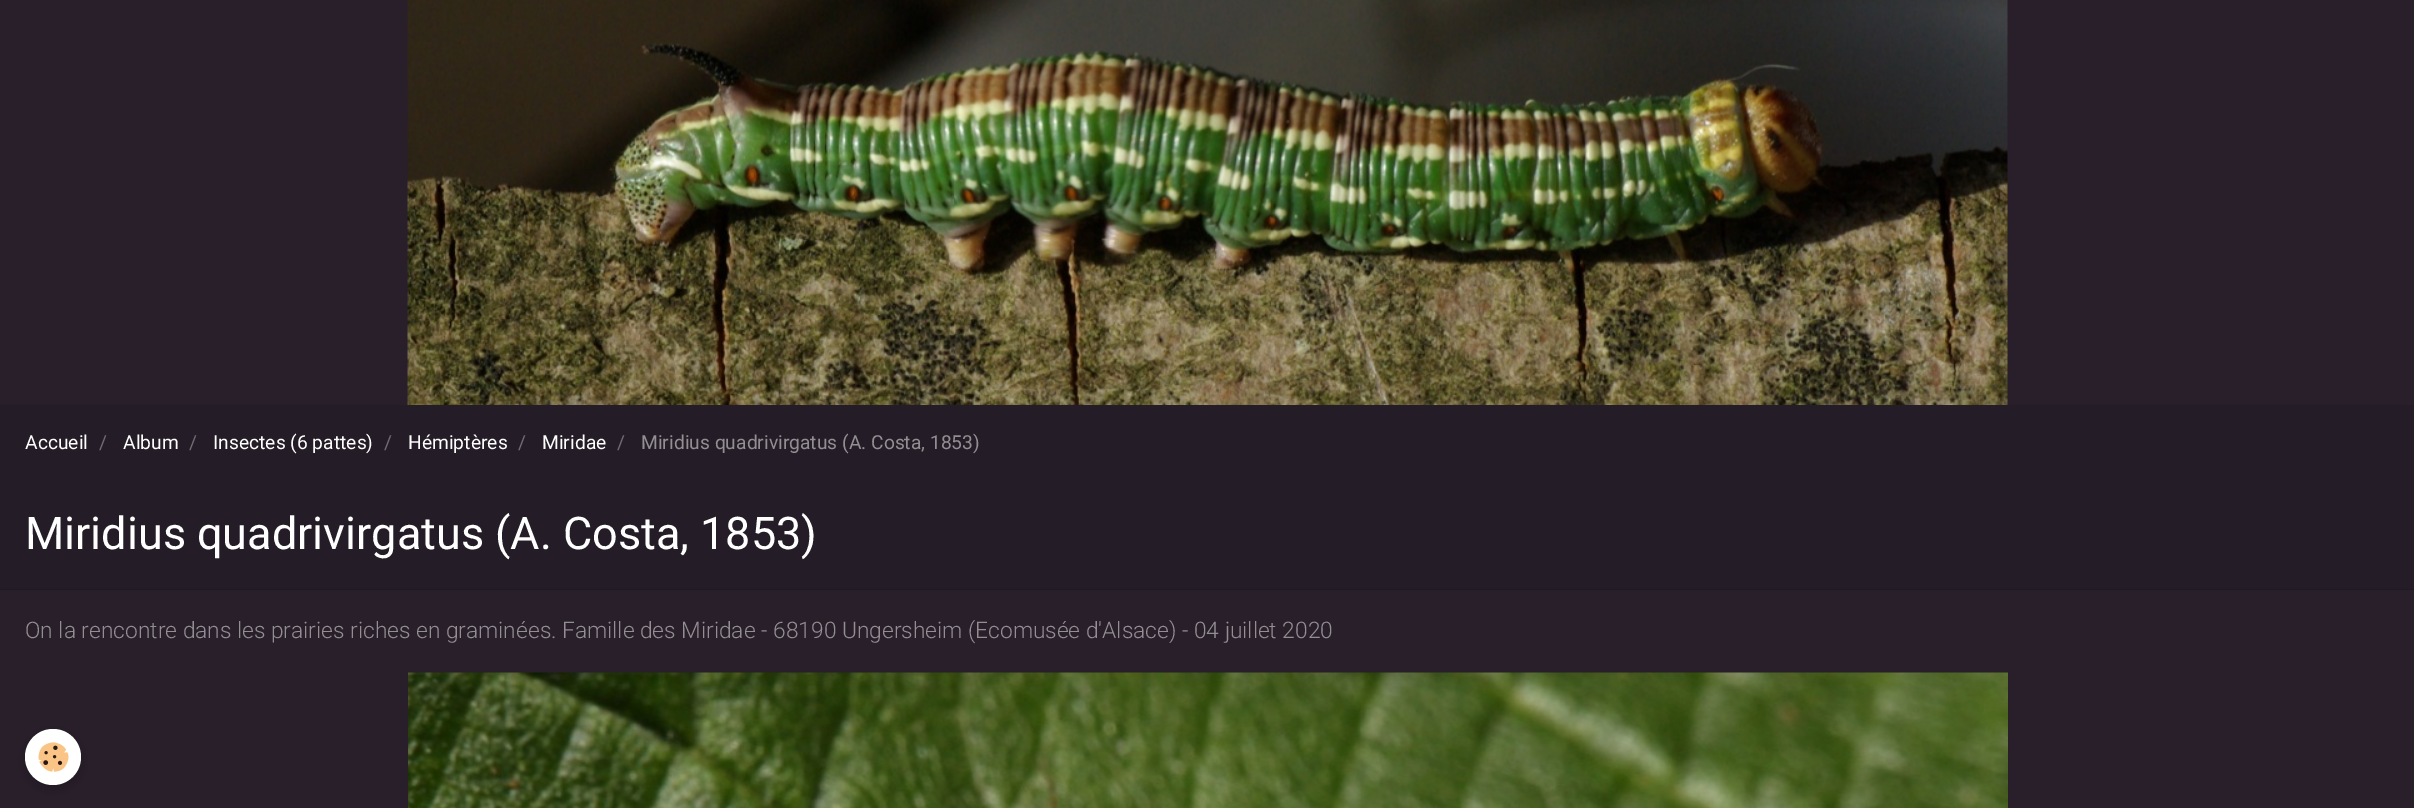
%!PS-Adobe-3.0
%%BoundingBox: 0 0 2414 808
%%LanguageLevel: 3
%%Pages: 1
%%EndComments
%%BeginProlog
/f { fill } bind def
/fn { [ exch dup neg 0 0 3 -1 roll 0 0 ] selectfont } def
/tx { moveto show } def
/bx { rectfill } def
/al { dup .setfillconstantalpha .setstrokeconstantalpha } def
/ci { newpath 0 360 arc closepath } def
/rr { 5 dict begin { /r /h /w /y /x } { exch def } forall
  x r add y moveto x w add y 2 copy h add r arct x w add y h add x 1 index r arct
  x y h add x y r arct x y 2 copy exch w add exch r arct closepath end } def
/sh { 12 dict begin { /a /b /q /h /w /y /x } { exch def } forall gsave /was 0 def
  9 -2 -9 { dup b mul 4 div /e exch def 1 sub .425 mul 2.718 exch exp 1 add a .99 .min exch div /now exch def
    1 1 now sub 1 was sub div sub al /was now def
    w h .min e 2 mul add 0 gt { x e sub y e sub w e 2 mul add h e 2 mul add
      q e add b .6 mul add w h .min 2 div e add .min 0 .max rr fill } if } for grestore end } def
/im { 5 dict begin { /h /w /y /x /name } { exch def } forall
  gsave x y translate w h scale
  w h 8 [w 0 0 h 0 0] name (r) file false 3 colorimage grestore end } def
%%EndProlog
%%BeginSetup
<< /PageSize [2414 808] /PageUsesTransparency true >> setpagedevice
%%EndSetup
%%Page: 1 1
0 .pushpdf14devicefilter
0 808 translate 1 -1 scale
4 setmiterlimit
0.157 0.122 0.169 setrgbcolor
0 0 2414 808 bx
(image0.raw) 407 0 1601 405 im
0.141 0.11 0.153 setrgbcolor
0 405 2414 184 bx
/Roboto-Regular 19.25 fn
1 setgray
(Accueil) 25 449 tx
0.443 0.424 0.447 setrgbcolor
(/) 99 449 tx
1 setgray
(Album) 123 449 tx
0.443 0.424 0.447 setrgbcolor
(/) 189 449 tx
1 setgray
(Insectes \(6 pattes\)) 213 449 tx
0.443 0.424 0.447 setrgbcolor
(/) 384 449 tx
1 setgray
(Hémiptères) 408 449 tx
0.443 0.424 0.447 setrgbcolor
(/) 518 449 tx
1 setgray
(Miridae) 542 449 tx
0.443 0.424 0.447 setrgbcolor
(/) 617 449 tx
0.573 0.557 0.573 setrgbcolor
(Miridius quadrivirgatus \(A. Costa, 1853\)) 641 449 tx
0.125 0.098 0.137 setrgbcolor
0 589 2414 1 bx
/Roboto-Regular 45 fn
1 setgray
(Miridius quadrivirgatus \(A. Costa, 1853\)) 25 549 tx
/Roboto-Light 22.75 fn
0.573 0.557 0.573 setrgbcolor
(On la rencontre dans les prairies riches en graminées. Famille des Miridae - 68190 Ungersheim \(Ecomusée d'Alsace\) - 04 juillet 2020) 25 638 tx
(image1.raw) 408 672 1600 136 im
0 setgray
25 733 56 56 28 6 0.24 sh
1 setgray
53 757 28 ci f
(image2.raw) 38 742 31 30 im
.poppdf14devicefilter showpage
%%EOF
